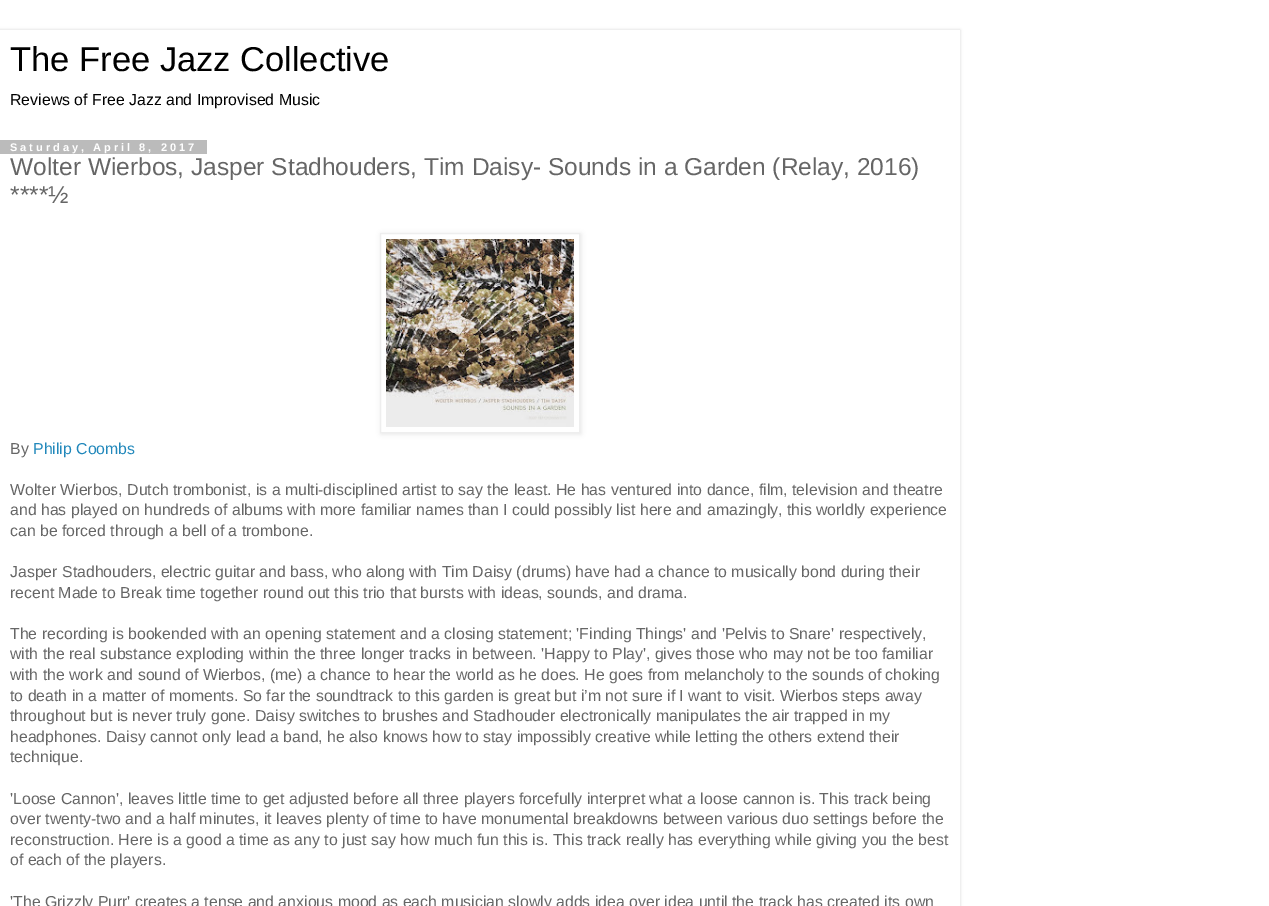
%!PS-Adobe-3.0
%%BoundingBox: 0 0 1269 906
%%LanguageLevel: 3
%%Pages: 1
%%EndComments
%%BeginProlog
/m { moveto } bind def
/l { lineto } bind def
/h { closepath } bind def
/q { gsave } bind def
/Q { grestore } bind def
/fn { [ exch dup neg 0 0 3 -1 roll 0 0 ] selectfont } def
/tx { moveto show } def
/bx { rectfill } def
/al { dup .setfillconstantalpha .setstrokeconstantalpha } def
/rr { 5 dict begin { /r /h /w /y /x } { exch def } forall
  x r add y moveto x w add y 2 copy h add r arct x w add y h add x 1 index r arct
  x y h add x y r arct x y 2 copy exch w add exch r arct closepath end } def
/sh { 12 dict begin { /a /b /q /h /w /y /x } { exch def } forall gsave /was 0 def
  9 -2 -9 { dup b mul 4 div /e exch def 1 sub .425 mul 2.718 exch exp 1 add a .99 .min exch div /now exch def
    1 1 now sub 1 was sub div sub al /was now def
    w h .min e 2 mul add 0 gt { x e sub y e sub w e 2 mul add h e 2 mul add
      q e add b .6 mul add w h .min 2 div e add .min 0 .max rr fill } if } for grestore end } def
/im { 5 dict begin { /h /w /y /x /name } { exch def } forall
  gsave x y translate w h scale
  w h 8 [w 0 0 h 0 0] name (r) file false 3 colorimage grestore end } def
%%EndProlog
%%BeginSetup
<< /PageSize [1269 906] /PageUsesTransparency true >> setpagedevice
%%EndSetup
%%Page: 1 1
0 .pushpdf14devicefilter
0 906 translate 1 -1 scale
4 setmiterlimit
1 setgray
0 0 1269 906 bx
q
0 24 m 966 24 l 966 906 l 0 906 l h 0 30 m 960 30 l 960 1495 l 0 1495 l h eoclip newpath
0 setgray
0 30 960 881 0 1.5 0.15 sh
Q
/LiberationSans-Regular 34.5 fn
0 setgray
(The Free Jazz Collective) 10 71 tx
/LiberationSans-Regular 15.85 fn
(Reviews of Free Jazz and Improvised Music) 10 105 tx
0.733 setgray
0 140 207 14 bx
/LiberationSans-Bold 11 fn
1 setgray
10 151 m 3 0 (Saturday, April 8, 2017) ashow
/LiberationSans-Regular 24.5 fn
0.4 setgray
(Wolter Wierbos, Jasper Stadhouders, Tim Daisy- Sounds in a Garden \(Relay, 2016\)) 10 175 tx
(****½) 10 203 tx
q
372 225 m 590 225 l 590 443 l 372 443 l h 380 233 m 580 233 l 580 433 l 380 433 l h eoclip newpath
0 setgray
381 234 200 200 0 2.5 0.1 sh
Q
0.933 setgray
380.5 233.5 199 199 rectstroke
(image0.raw) 386 239 188 188 im
/LiberationSans-Regular 15.85 fn
0.4 setgray
(By) 10 454 tx
0.133 0.533 0.733 setrgbcolor
(Philip Coombs) 33 454 tx
0.4 setgray
(Wolter Wierbos, Dutch trombonist, is a multi-disciplined artist to say the least. He has ventured into dance, film, television and theatre) 10 495 tx
(and has played on hundreds of albums with more familiar names than I could possibly list here and amazingly, this worldly experience) 10 515 tx
(can be forced through a bell of a trombone.) 10 536 tx
(Jasper Stadhouders, electric guitar and bass, who along with Tim Daisy \(drums\) have had a chance to musically bond during their) 10 577 tx
(recent Made to Break time together round out this trio that bursts with ideas, sounds, and drama.) 10 598 tx
(The recording is bookended with an opening statement and a closing statement; 'Finding Things' and 'Pelvis to Snare' respectively,) 10 639 tx
(with the real substance exploding within the three longer tracks in between. 'Happy to Play', gives those who may not be too familiar) 10 659 tx
(with the work and sound of Wierbos, \(me\) a chance to hear the world as he does. He goes from melancholy to the sounds of choking) 10 680 tx
(to death in a matter of moments. So far the soundtrack to this garden is great but i’m not sure if I want to visit. Wierbos steps away) 10 701 tx
(throughout but is never truly gone. Daisy switches to brushes and Stadhouder electronically manipulates the air trapped in my) 10 721 tx
(headphones. Daisy cannot only lead a band, he also knows how to stay impossibly creative while letting the others extend their) 10 742 tx
(technique.) 10 762 tx
('Loose Cannon', leaves little time to get adjusted before all three players forcefully interpret what a loose cannon is. This track being) 10 804 tx
(over twenty-two and a half minutes, it leaves plenty of time to have monumental breakdowns between various duo settings before the) 10 824 tx
(reconstruction. Here is a good a time as any to just say how much fun this is. This track really has everything while giving you the best) 10 845 tx
(of each of the players.) 10 865 tx
('The Grizzly Purr' creates a tense and anxious mood as each musician slowly adds idea over idea until the track has created its own) 10 907 tx
.poppdf14devicefilter showpage
%%EOF
